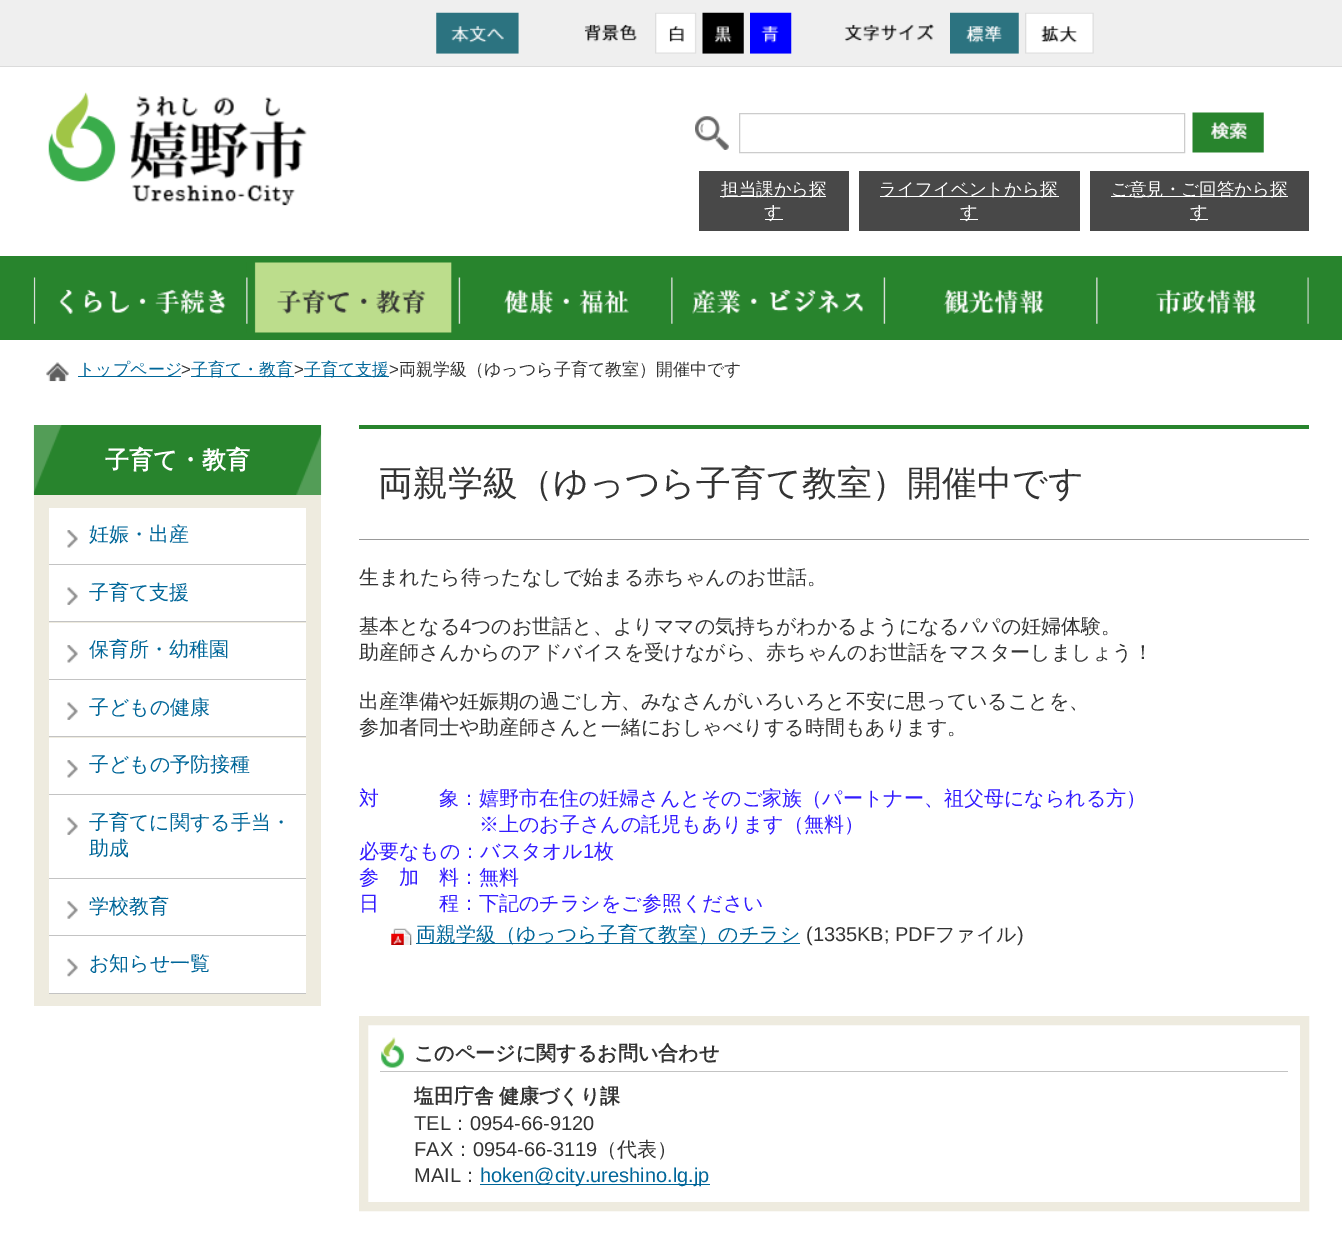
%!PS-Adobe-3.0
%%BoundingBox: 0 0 1342 1253
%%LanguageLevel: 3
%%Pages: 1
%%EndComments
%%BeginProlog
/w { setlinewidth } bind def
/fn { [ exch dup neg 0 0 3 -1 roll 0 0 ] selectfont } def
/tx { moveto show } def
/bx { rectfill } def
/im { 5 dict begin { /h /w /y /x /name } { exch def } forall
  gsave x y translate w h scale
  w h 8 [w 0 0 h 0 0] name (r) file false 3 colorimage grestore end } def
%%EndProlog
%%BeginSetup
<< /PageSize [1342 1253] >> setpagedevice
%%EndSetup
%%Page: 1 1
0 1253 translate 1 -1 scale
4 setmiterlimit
1 setgray
0 0 1342 1253 bx
0.937 setgray
0 0 1342 66 bx
0.859 setgray
0 66 1342 1 bx
(image0.raw) 436 12 83 42 im
(image1.raw) 584 24 53 18 im
(image2.raw) 655 12 42 42 im
(image3.raw) 702 12 42 42 im
(image4.raw) 750 12 42 42 im
(image5.raw) 844 23 90 19 im
(image6.raw) 950 12 69 42 im
(image7.raw) 1025 12 69 42 im
(image8.raw) 48 92 259 114 im
(image9.raw) 695 116 34 34 im
0.8 setgray
739.5 113.5 445 39 rectstroke
(image10.raw) 1192 112 72 41 im
0.282 setgray
699 171 150 60 bx
1 setgray
720 196 106 1 bx
/WenQuanYiZenHei-Medium 17.5 fn
(担当課から探) 721 195 tx
765 219 18 1 bx
(す) 764 218 tx
0.282 setgray
859 171 221 60 bx
1 setgray
880 196 179 1 bx
(ライフイベントから探) 879 195 tx
960 219 18 1 bx
(す) 960 218 tx
0.282 setgray
1090 171 219 60 bx
1 setgray
1111 196 177 1 bx
(ご意見・ご回答から探) 1111 195 tx
1190 219 18 1 bx
(す) 1190 218 tx
0.157 0.518 0.176 setrgbcolor
0 256 1342 84 bx
(image11.raw) 33 277 193 47 im
(image12.raw) 246 262 206 71 im
(image13.raw) 458 277 171 47 im
(image14.raw) 671 277 193 47 im
(image15.raw) 883 277 161 47 im
(image16.raw) 1096 277 213 47 im
(image17.raw) 46 362 23 20 im
0 0.4 0.6 setrgbcolor
78 376 103 1 bx
/WenQuanYiZenHei-Medium 17 fn
(トップページ) 78 375 tx
/LiberationSans-Regular 17 fn
0.2 setgray
(>) 181 375 tx
0 0.4 0.6 setrgbcolor
191 376 103 1 bx
/WenQuanYiZenHei-Medium 17 fn
(子育て・教育) 191 375 tx
/LiberationSans-Regular 17 fn
0.2 setgray
(>) 294 375 tx
0 0.4 0.6 setrgbcolor
304 376 85 1 bx
/WenQuanYiZenHei-Medium 17 fn
(子育て支援) 304 375 tx
/LiberationSans-Regular 17 fn
0.2 setgray
(>) 389 375 tx
/WenQuanYiZenHei-Medium 17 fn
(両親学級（ゆっつら子育て教室）開催中です) 399 375 tx
(image18.raw) 33 425 289 70 im
/WenQuanYiZenHei-Bold 24 fn
1 setgray
(子育て・教育) 105 468 tx
0.933 0.922 0.875 setrgbcolor
34 495 287 511 bx
1 setgray
49 508 257 56 bx
(image19.raw) 67 530 11 18 im
0.765 setgray
49 564 257 1 bx
/WenQuanYiZenHei-Medium 20 fn
0 0.4 0.6 setrgbcolor
(妊娠・出産) 89 541 tx
1 setgray
49 565 257 56 bx
(image20.raw) 67 587 11 18 im
0.765 setgray
49 621 257 1 bx
0 0.4 0.6 setrgbcolor
(子育て支援) 89 599 tx
1 setgray
49 623 257 56 bx
(image19.raw) 67 645 11 18 im
0.765 setgray
49 679 257 1 bx
0 0.4 0.6 setrgbcolor
(保育所・幼稚園) 89 656 tx
1 setgray
49 680 257 56 bx
(image21.raw) 67 702 11 18 im
0.765 setgray
49 736 257 1 bx
0 0.4 0.6 setrgbcolor
(子どもの健康) 89 714 tx
1 setgray
49 738 257 56 bx
(image19.raw) 67 760 11 18 im
0.765 setgray
49 794 257 1 bx
0 0.4 0.6 setrgbcolor
(子どもの予防接種) 89 771 tx
1 setgray
49 795 257 83 bx
(image21.raw) 67 817 11 18 im
0.765 setgray
49 878 257 1 bx
0 0.4 0.6 setrgbcolor
(子育てに関する手当・) 89 829 tx
(助成) 89 855 tx
1 setgray
49 879 257 56 bx
(image22.raw) 67 901 11 18 im
0.765 setgray
49 935 257 1 bx
0 0.4 0.6 setrgbcolor
(学校教育) 89 913 tx
1 setgray
49 936 257 57 bx
(image23.raw) 67 958 11 19 im
0.765 setgray
49 993 257 1 bx
0 0.4 0.6 setrgbcolor
(お知らせ一覧) 89 970 tx
0.157 0.518 0.176 setrgbcolor
359 425 950 4 bx
0.6 setgray
359 539 950 1 bx
/WenQuanYiZenHei-Medium 35 fn
0.2 setgray
(両親学級（ゆっつら子育て教室）開催中です) 378 495 tx
/WenQuanYiZenHei-Medium 20 fn
(生まれたら待ったなしで始まる赤ちゃんのお世話。) 359 584 tx
(基本となる) 359 633 tx
/LiberationSans-Regular 20 fn
(4) 460 633 tx
/WenQuanYiZenHei-Medium 20 fn
(つのお世話と、よりママの気持ちがわかるようになるパパの妊婦体験。) 471 633 tx
(助産師さんからのアドバイスを受けながら、赤ちゃんのお世話をマスターしましょう！) 359 659 tx
(出産準備や妊娠期の過ごし方、みなさんがいろいろと不安に思っていることを、) 359 708 tx
(参加者同士や助産師さんと一緒におしゃべりする時間もあります。) 359 734 tx
0.2 0.11 1 setrgbcolor
(対　　　象：嬉野市在住の妊婦さんとそのご家族（パートナー、祖父母になられる方）) 359 805 tx
(※上のお子さんの託児もあります（無料）) 479 831 tx
(必要なもの：バスタオル) 359 858 tx
/LiberationSans-Regular 20 fn
(1) 583 858 tx
/WenQuanYiZenHei-Medium 20 fn
(枚) 594 858 tx
(参　加　料：無料) 359 884 tx
(日　　　程：下記のチラシをご参照ください) 359 910 tx
(image24.raw) 391 928 21 17 im
0 0.4 0.6 setrgbcolor
416 943 384 1 bx
(両親学級（ゆっつら子育て教室）のチラシ) 416 941 tx
/LiberationSans-Regular 20 fn
0.2 setgray
(\(1335KB; PDF) 806 941 tx
/WenQuanYiZenHei-Medium 20 fn
(ファイル) 935 941 tx
/LiberationSans-Regular 20 fn
(\)) 1017 941 tx
0.933 0.922 0.875 setrgbcolor
9 w
363.5 1020.5 941 186 rectstroke
(image25.raw) 381 1037 23 31 im
0.765 setgray
380 1071 908 1 bx
/WenQuanYiZenHei-Bold 20 fn
0.2 setgray
(このページに関するお問い合わせ) 414 1060 tx
(塩田庁舎) 414 1103 tx
(健康づくり課) 499 1103 tx
/LiberationSans-Regular 20 fn
(TEL) 414 1130 tx
/WenQuanYiZenHei-Medium 20 fn
(：) 450 1130 tx
/LiberationSans-Regular 20 fn
(0954-66-9120) 470 1130 tx
(FAX) 414 1156 tx
/WenQuanYiZenHei-Medium 20 fn
(：) 453 1156 tx
/LiberationSans-Regular 20 fn
(0954-66-3119) 473 1156 tx
/WenQuanYiZenHei-Medium 20 fn
(（代表）) 597 1156 tx
/LiberationSans-Regular 20 fn
(MAIL) 414 1182 tx
/WenQuanYiZenHei-Medium 20 fn
(：) 460 1182 tx
0 0.4 0.6 setrgbcolor
480 1184 230 1 bx
/LiberationSans-Regular 20 fn
(hoken@city.ureshino.lg.jp) 480 1182 tx
showpage
%%EOF
